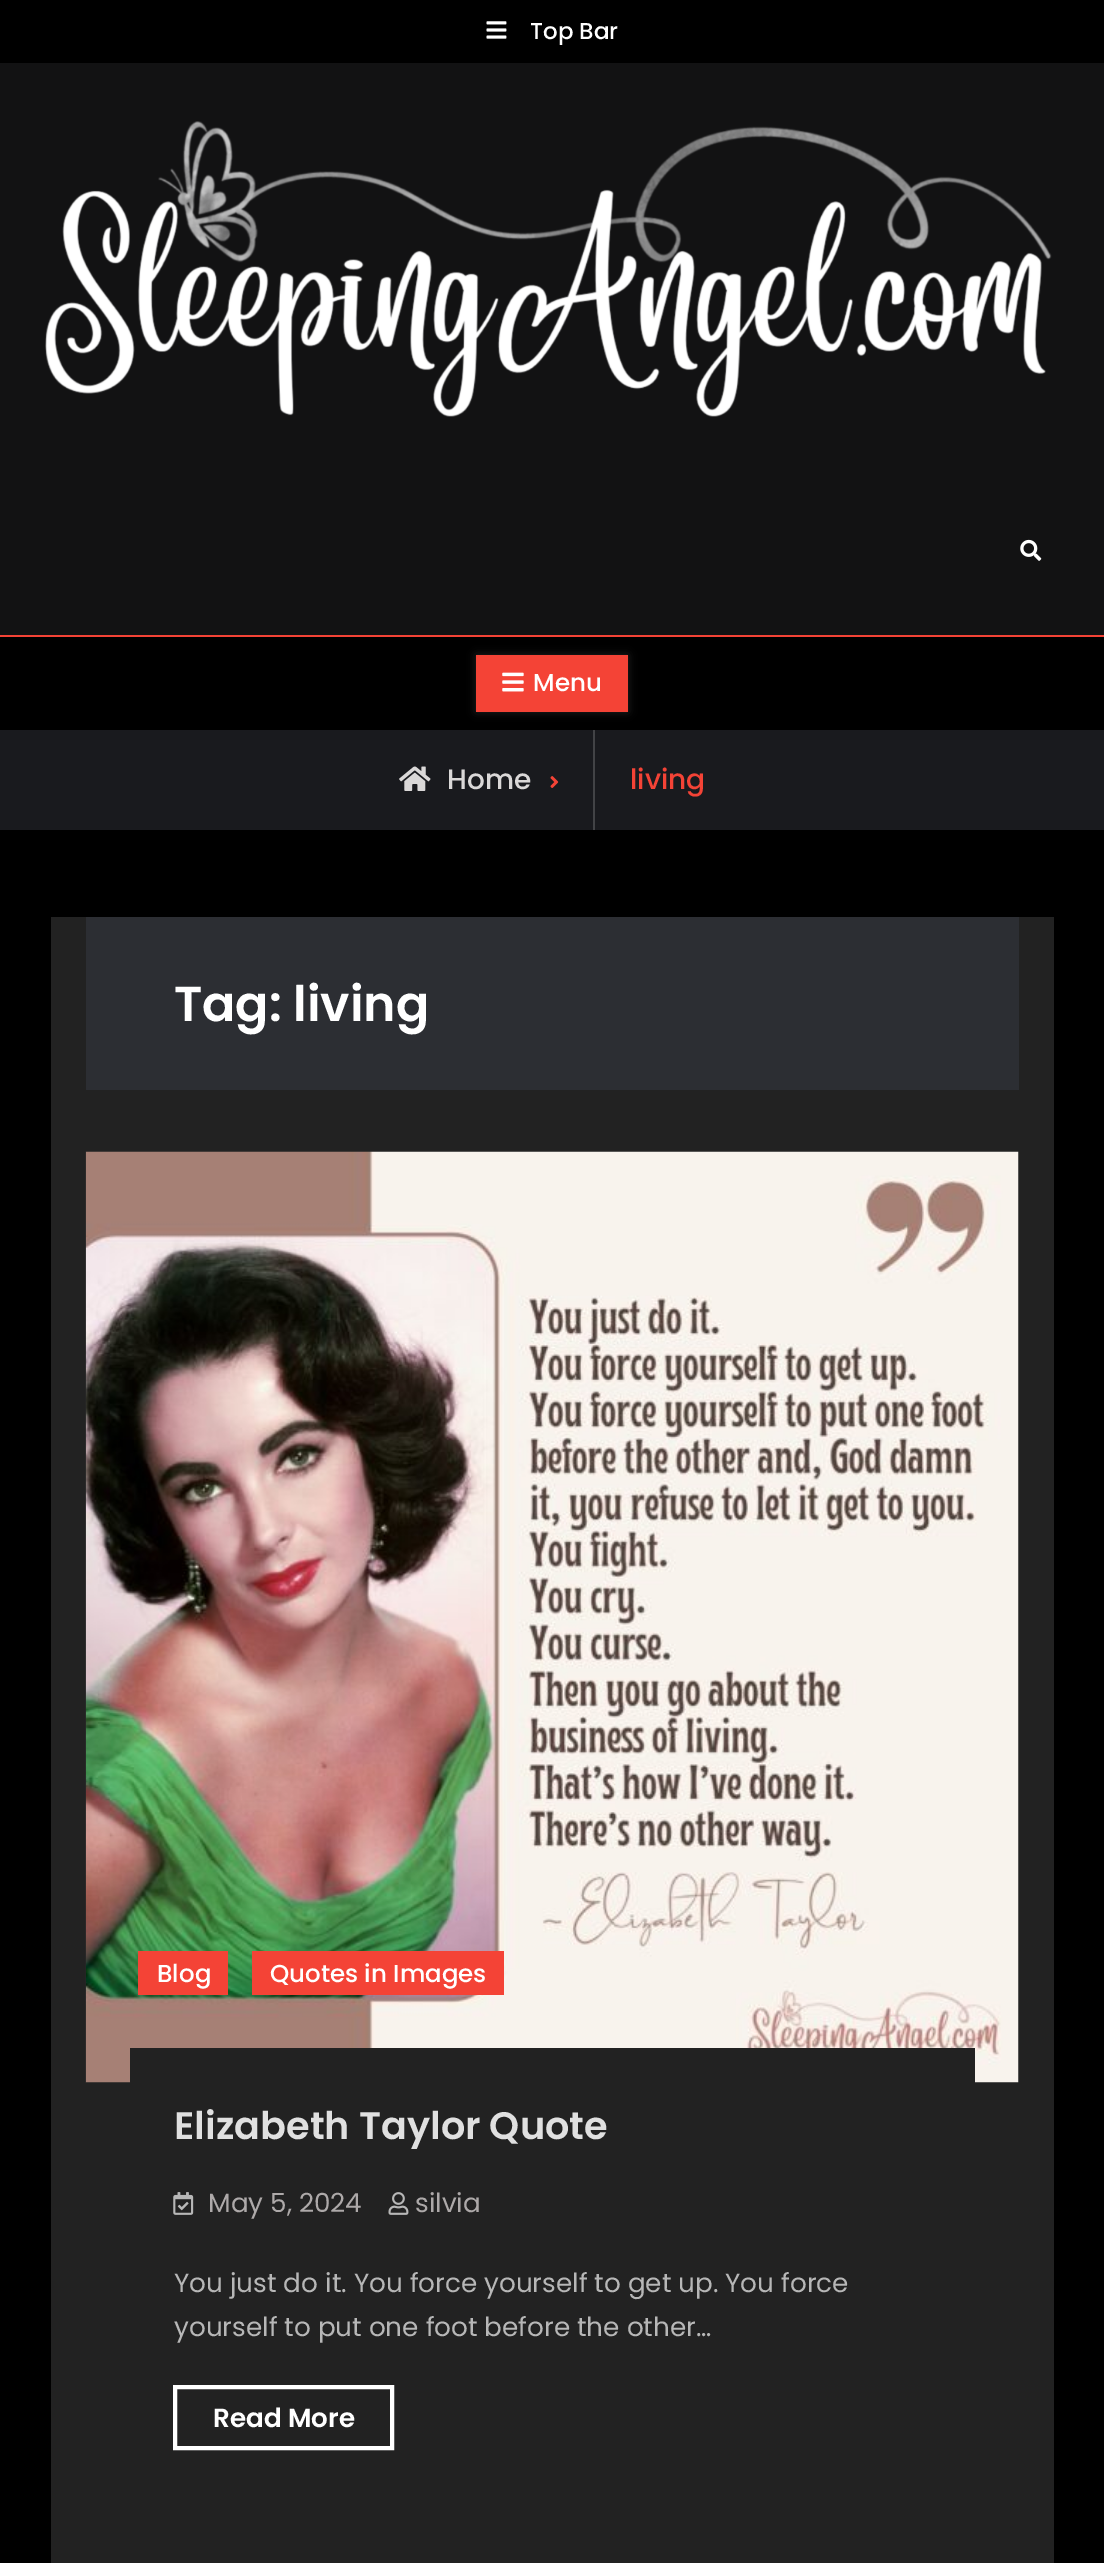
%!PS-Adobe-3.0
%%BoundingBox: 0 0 1104 2563
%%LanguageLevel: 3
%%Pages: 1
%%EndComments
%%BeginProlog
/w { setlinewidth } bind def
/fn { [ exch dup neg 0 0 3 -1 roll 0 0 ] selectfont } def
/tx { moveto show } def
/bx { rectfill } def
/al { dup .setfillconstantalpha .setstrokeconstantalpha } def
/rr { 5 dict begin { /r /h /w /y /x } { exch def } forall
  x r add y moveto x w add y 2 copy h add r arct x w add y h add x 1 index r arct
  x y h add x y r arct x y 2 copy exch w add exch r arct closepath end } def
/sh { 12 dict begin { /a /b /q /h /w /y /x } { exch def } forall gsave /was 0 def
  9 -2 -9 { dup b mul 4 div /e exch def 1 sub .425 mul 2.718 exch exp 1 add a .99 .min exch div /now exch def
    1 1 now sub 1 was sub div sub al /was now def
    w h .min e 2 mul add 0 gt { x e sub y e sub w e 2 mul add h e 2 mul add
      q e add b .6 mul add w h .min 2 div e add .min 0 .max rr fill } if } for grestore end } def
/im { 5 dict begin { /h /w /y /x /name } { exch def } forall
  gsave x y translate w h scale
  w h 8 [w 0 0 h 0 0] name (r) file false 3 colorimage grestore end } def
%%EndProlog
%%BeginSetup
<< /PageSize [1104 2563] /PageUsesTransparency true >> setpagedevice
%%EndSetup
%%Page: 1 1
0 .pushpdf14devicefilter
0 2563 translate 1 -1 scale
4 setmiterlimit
0 setgray
0 0 1104 2563 bx
(image0.raw) 486 21 21 18 im
/Poppins-Medium 23 fn
1 setgray
(Top Bar) 530 39 tx
0.071 0.071 0.075 setrgbcolor
0 63 1104 572 bx
(image1.raw) 45 121 1007 296 im
(image2.raw) 1020 539 22 22 im
0.957 0.263 0.212 setrgbcolor
0 635 1104 2 bx
0.133 setgray
476 655 152 57 0 4.5 1 sh
0.957 0.263 0.212 setrgbcolor
476 655 152 57 bx
(image3.raw) 502 672 22 20 im
/Poppins-Medium 24.5 fn
1 setgray
(Menu) 533 691 tx
0.098 0.102 0.118 setrgbcolor
0 730 1104 100 bx
0.259 0.263 0.275 setrgbcolor
593 730 2 100 bx
(image4.raw) 399 766 32 25 im
/Poppins-Medium 28 fn
0.855 0.847 0.847 setrgbcolor
(Home) 447 789 tx
(image5.raw) 550 776 9 12 im
0.957 0.263 0.212 setrgbcolor
(living) 630 789 tx
0.133 setgray
51 917 1003 1646 bx
0.173 0.18 0.2 setrgbcolor
86 917 933 173 bx
/Poppins-SemiBold 49 fn
1 setgray
(Tag: living) 174 1021 tx
(image6.raw) 85 1151 934 932 im
0.957 0.263 0.212 setrgbcolor
138 1951 90 44 bx
/Poppins-Medium 24.5 fn
1 setgray
(Blog) 157 1982 tx
0.957 0.263 0.212 setrgbcolor
252 1951 252 44 bx
1 setgray
(Quotes in Images) 270 1982 tx
0.133 setgray
130 2048 845 35 bx
/Poppins-SemiBold 38.25 fn
0.878 setgray
(Elizabeth Taylor Quote) 174 2139 tx
(image7.raw) 173 2192 21 23 im
/Poppins-Regular 26.25 fn
0.678 0.663 0.663 setrgbcolor
(May 5, 2024) 208 2212 tx
(image8.raw) 388 2192 21 23 im
(silvia) 415 2212 tx
0.718 setgray
(You just do it. You force yourself to get up. You force) 174 2292 tx
(yourself to put one foot before the other…) 174 2336 tx
1 setgray
4 w
175 2387 217 61 rectstroke
/Poppins-SemiBold 26.25 fn
(Read More) 213 2427 tx
.poppdf14devicefilter showpage
%%EOF
